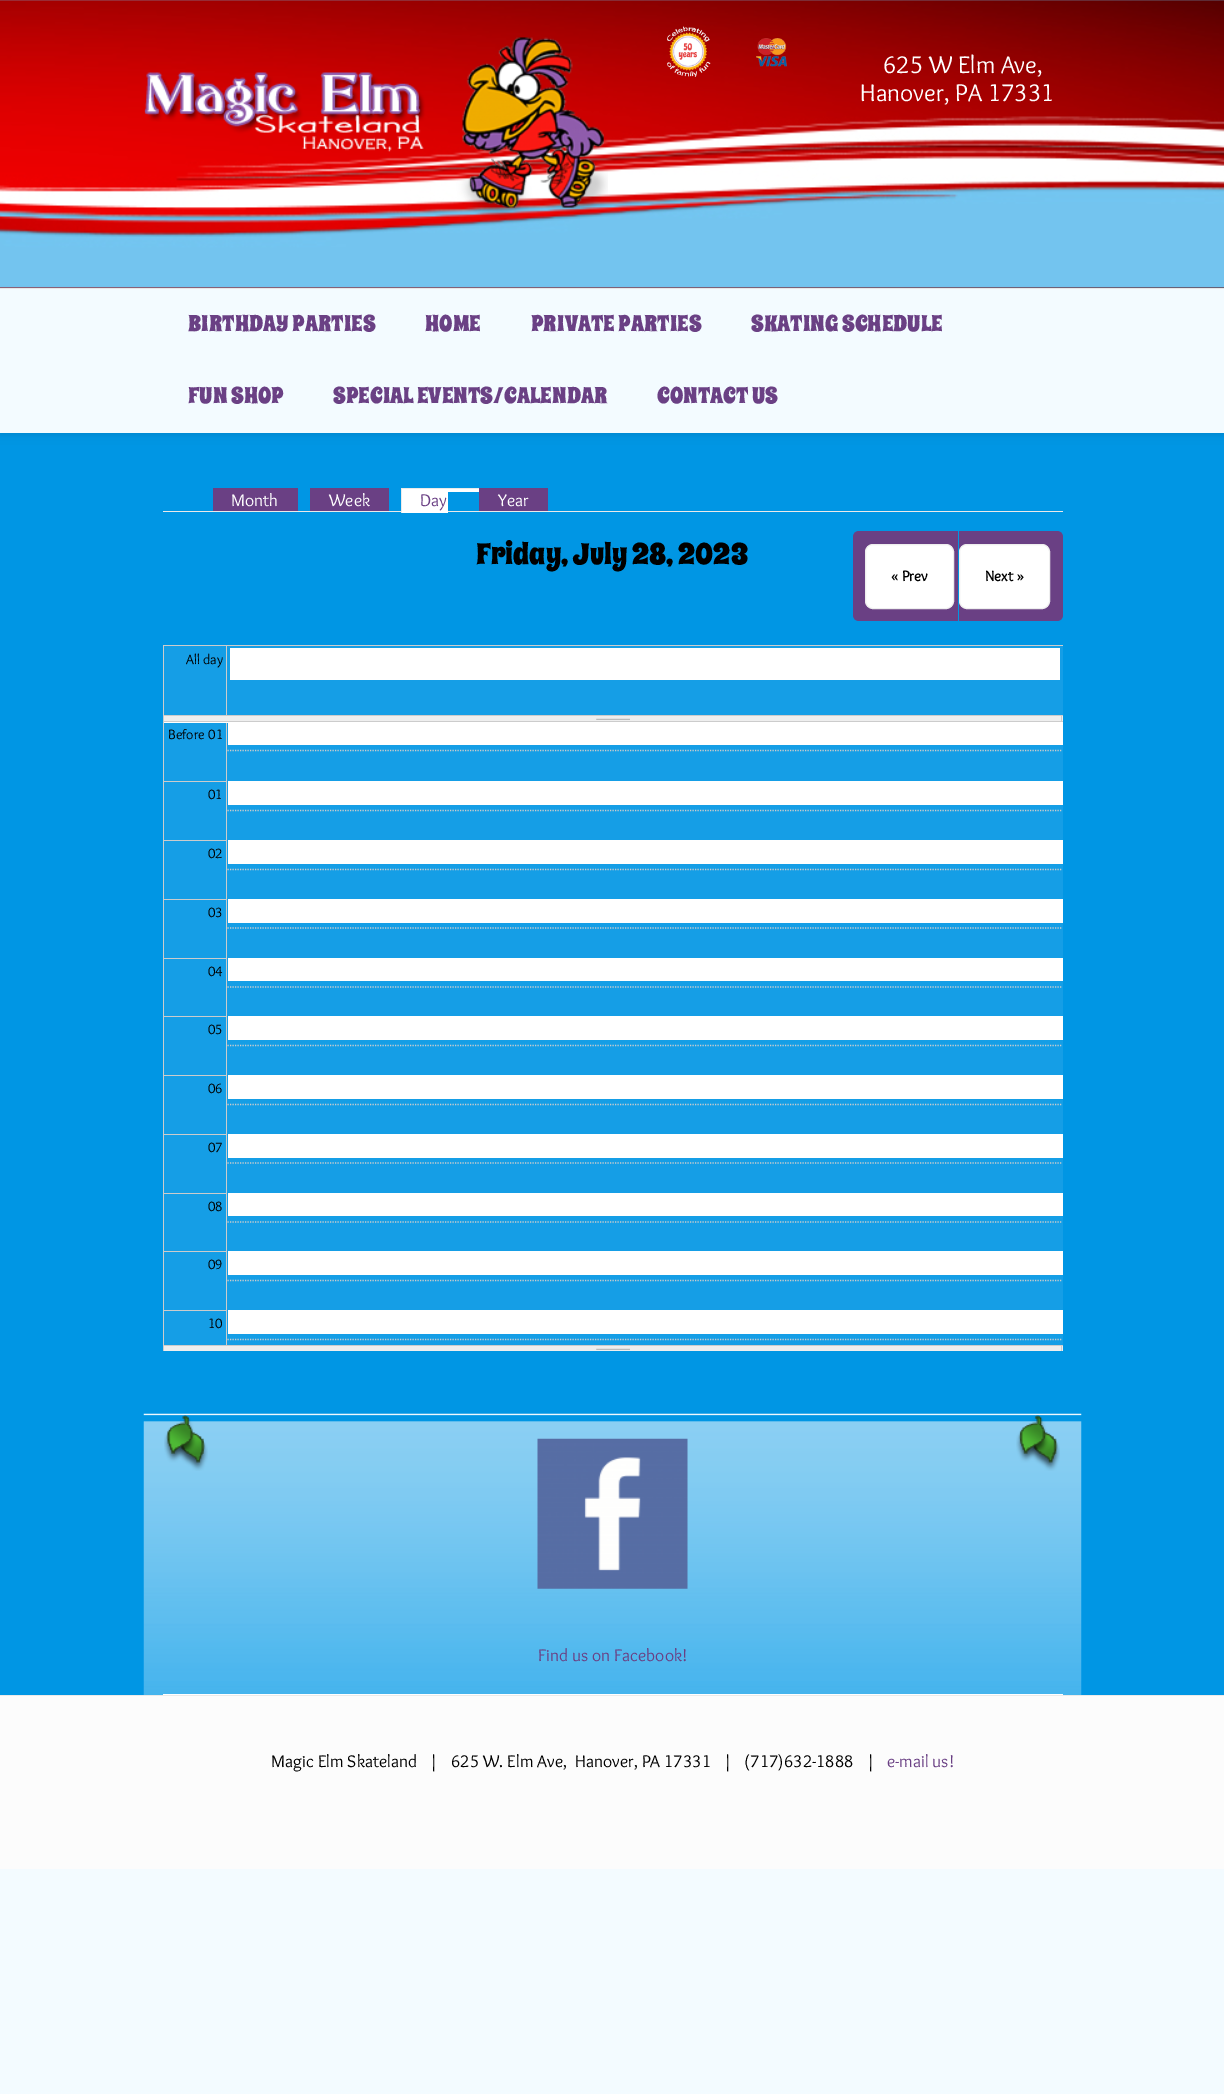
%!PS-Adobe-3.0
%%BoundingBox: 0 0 1224 2094
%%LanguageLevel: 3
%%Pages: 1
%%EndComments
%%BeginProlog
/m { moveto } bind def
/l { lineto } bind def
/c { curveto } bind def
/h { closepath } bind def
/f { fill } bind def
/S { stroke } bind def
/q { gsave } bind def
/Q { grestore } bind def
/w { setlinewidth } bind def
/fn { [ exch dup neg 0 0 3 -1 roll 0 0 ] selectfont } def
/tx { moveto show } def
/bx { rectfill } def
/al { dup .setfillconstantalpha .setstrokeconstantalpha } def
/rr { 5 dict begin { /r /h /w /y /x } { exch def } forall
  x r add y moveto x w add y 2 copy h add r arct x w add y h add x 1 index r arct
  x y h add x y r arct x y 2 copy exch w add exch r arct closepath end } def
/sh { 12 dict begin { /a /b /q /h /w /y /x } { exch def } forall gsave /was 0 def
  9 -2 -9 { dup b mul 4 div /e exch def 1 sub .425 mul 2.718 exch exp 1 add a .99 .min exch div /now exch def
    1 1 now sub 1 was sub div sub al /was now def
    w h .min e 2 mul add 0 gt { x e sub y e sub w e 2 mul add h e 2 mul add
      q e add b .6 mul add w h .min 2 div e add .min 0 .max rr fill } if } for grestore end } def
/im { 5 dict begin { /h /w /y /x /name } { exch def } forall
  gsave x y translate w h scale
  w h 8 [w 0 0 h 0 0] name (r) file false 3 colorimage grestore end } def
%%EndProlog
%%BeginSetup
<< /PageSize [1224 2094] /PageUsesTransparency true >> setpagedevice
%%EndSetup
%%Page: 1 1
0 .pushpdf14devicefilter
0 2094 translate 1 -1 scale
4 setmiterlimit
0.953 0.984 1 setrgbcolor
0 0 1224 2094 bx
(image0.raw) 0 0 1224 288 im
0.918 setgray
0 288 1224 1 bx
(image1.raw) 144 37 464 182 im
(image2.raw) 666 26 121 51 im
/Overlock-Regular 25 fn
1 setgray
(625 W Elm Ave,) 883 73 tx
(Hanover, PA 17331) 860 101 tx
0 0.584 0.886 setrgbcolor
0 433 1224 12 bx
0 setgray
0 291 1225 144 0 2.5 0.07 sh
0.953 0.984 1 setrgbcolor
0 289 1224 144 bx
/SpicyRice-Regular 22.75 fn
0.416 0.251 0.518 setrgbcolor
(BIRTHDAY PARTIES) 188 331 tx
(HOME) 425 331 tx
(PRIVATE PARTIES) 531 331 tx
(SKATING SCHEDULE) 751 331 tx
(FUN SHOP) 188 403 tx
(SPECIAL EVENTS/CALENDAR) 333 403 tx
(CONTACT US) 657 403 tx
0 0.588 0.894 setrgbcolor
0 445 1224 1250 bx
0.918 setgray
163 511 900 1 bx
0.416 0.251 0.518 setrgbcolor
213 488 85 23 bx
/Overlock-Regular 17.5 fn
1 setgray
(Month) 231 506 tx
0.416 0.251 0.518 setrgbcolor
310 488 79 23 bx
1 setgray
(Week) 329 506 tx
402 489 46 24 bx
0.416 0.251 0.518 setrgbcolor
(Day) 420 506 tx
0.918 setgray
401 488 78 1 bx
401 488 1 25 bx
1 setgray
448 489 31 3 bx
0.416 0.251 0.518 setrgbcolor
479 488 69 23 bx
1 setgray
(Year) 498 506 tx
/SpicyRice-Regular 29.75 fn
0 setgray
(Friday, July 28, 2023) 476 564 tx
0.416 0.251 0.518 setrgbcolor
859 531 m 958 531 l 958 621 l 859 621 l 855.5 621 853 618.5 853 615 c 853 537 l 853 533.5 855.5 531 859 531 c h f
1 setgray
865.5 544.5 88 64 7.5 rr q f Q
0.933 setgray
S
/Overlock-Bold 15 fn
0 setgray
(« Prev) 891 581 tx
0.416 0.251 0.518 setrgbcolor
959 531 m 1057 531 l 1060.5 531 1063 533.5 1063 537 c 1063 615 l 1063 618.5 1060.5 621 1057 621 c 959 621 l h f
1 setgray
959.5 544.5 90 64 7.5 rr q f Q
0.933 setgray
S
0 setgray
(Next ») 985 581 tx
0.8 setgray
163 645 900 1 bx
163 715 900 1 bx
163 645 1 71 bx
0.082 0.62 0.902 setrgbcolor
164 646 62 69 bx
/Overlock-Regular 14 fn
0 setgray
(All day) 186 664 tx
0.082 0.62 0.902 setrgbcolor
227 646 836 69 bx
0.8 setgray
226 646 1 69 bx
1 setgray
230 648 830 32 bx
0.933 setgray
163 716 900 5 bx
0.8 setgray
1061 716 1 5 bx
163 716 1 5 bx
(image3.raw) 596 718 34 2 im
1 setgray
164 722 899 1 bx
0.8 setgray
163 721 900 1 bx
163 1345 900 1 bx
163 721 1 625 bx
0.082 0.62 0.902 setrgbcolor
164 723 62 622 bx
0 setgray
(Before 01) 168 739 tx
0.8 setgray
164 781 62 1 bx
0 setgray
(01) 208 799 tx
0.8 setgray
164 840 62 1 bx
0 setgray
(02) 208 858 tx
0.8 setgray
164 899 62 1 bx
0 setgray
(03) 208 917 tx
0.8 setgray
164 958 62 1 bx
0 setgray
(04) 208 976 tx
0.8 setgray
164 1016 62 1 bx
0 setgray
(05) 208 1034 tx
0.8 setgray
164 1075 62 1 bx
0 setgray
(06) 208 1093 tx
0.8 setgray
164 1134 62 1 bx
0 setgray
(07) 208 1152 tx
0.8 setgray
164 1193 62 1 bx
0 setgray
(08) 208 1211 tx
0.8 setgray
164 1251 62 1 bx
0 setgray
(09) 208 1269 tx
0.8 setgray
164 1310 62 1 bx
0 setgray
(10) 208 1328 tx
0.082 0.62 0.902 setrgbcolor
227 723 836 622 bx
0.8 setgray
226 723 1 622 bx
1 setgray
228 723 835 22 bx
0.8 setgray
1.2 w
[1.25 1.25] 0 setdash
227.5 750.5 m 1062.5 750.5 l S
1 setgray
228 781 835 24 bx
0.8 setgray
227.5 810.5 m 1062.5 810.5 l S
1 setgray
228 840 835 24 bx
0.8 setgray
227.5 869.5 m 1062.5 869.5 l S
1 setgray
228 899 835 24 bx
0.8 setgray
227.5 928 m 1062.5 928 l S
1 setgray
228 958 835 23 bx
0.8 setgray
227.5 987 m 1062.5 987 l S
1 setgray
228 1016 835 24 bx
0.8 setgray
227.5 1045.5 m 1062.5 1045.5 l S
1 setgray
228 1075 835 24 bx
0.8 setgray
227.5 1104.5 m 1062.5 1104.5 l S
1 setgray
228 1134 835 24 bx
0.8 setgray
227.5 1163 m 1062.5 1163 l S
1 setgray
228 1193 835 23 bx
0.8 setgray
227.5 1222 m 1062.5 1222 l S
1 setgray
228 1251 835 24 bx
0.8 setgray
227.5 1280.5 m 1062.5 1280.5 l S
1 setgray
228 1310 835 24 bx
0.8 setgray
227.5 1339.5 m 1062.5 1339.5 l S
0.933 setgray
163 1346 900 5 bx
0.8 setgray
1061 1346 1 5 bx
163 1346 1 5 bx
(image3.raw) 596 1348 34 2 im
(image4.raw) 143 1413 939 282 im
(image5.raw) 1016 1415 44 56 im
(image6.raw) 164 1415 44 56 im
1 setgray
163 1694 900 1 bx
(image7.raw) 537 1438 151 151 im
/Overlock-Regular 17.5 fn
0.416 0.251 0.518 setrgbcolor
(Find us on Facebook!) 538 1661 tx
0.988 setgray
0 1696 1224 173 bx
0.918 setgray
0 1695 1224 1 bx
0 setgray
(Magic Elm Skateland   |   625 W. Elm Ave,  Hanover, PA 17331   |   \(717\)632-1888   |) 271 1767 tx
0.416 0.251 0.518 setrgbcolor
(e-mail us!) 887 1767 tx
.poppdf14devicefilter showpage
%%EOF
